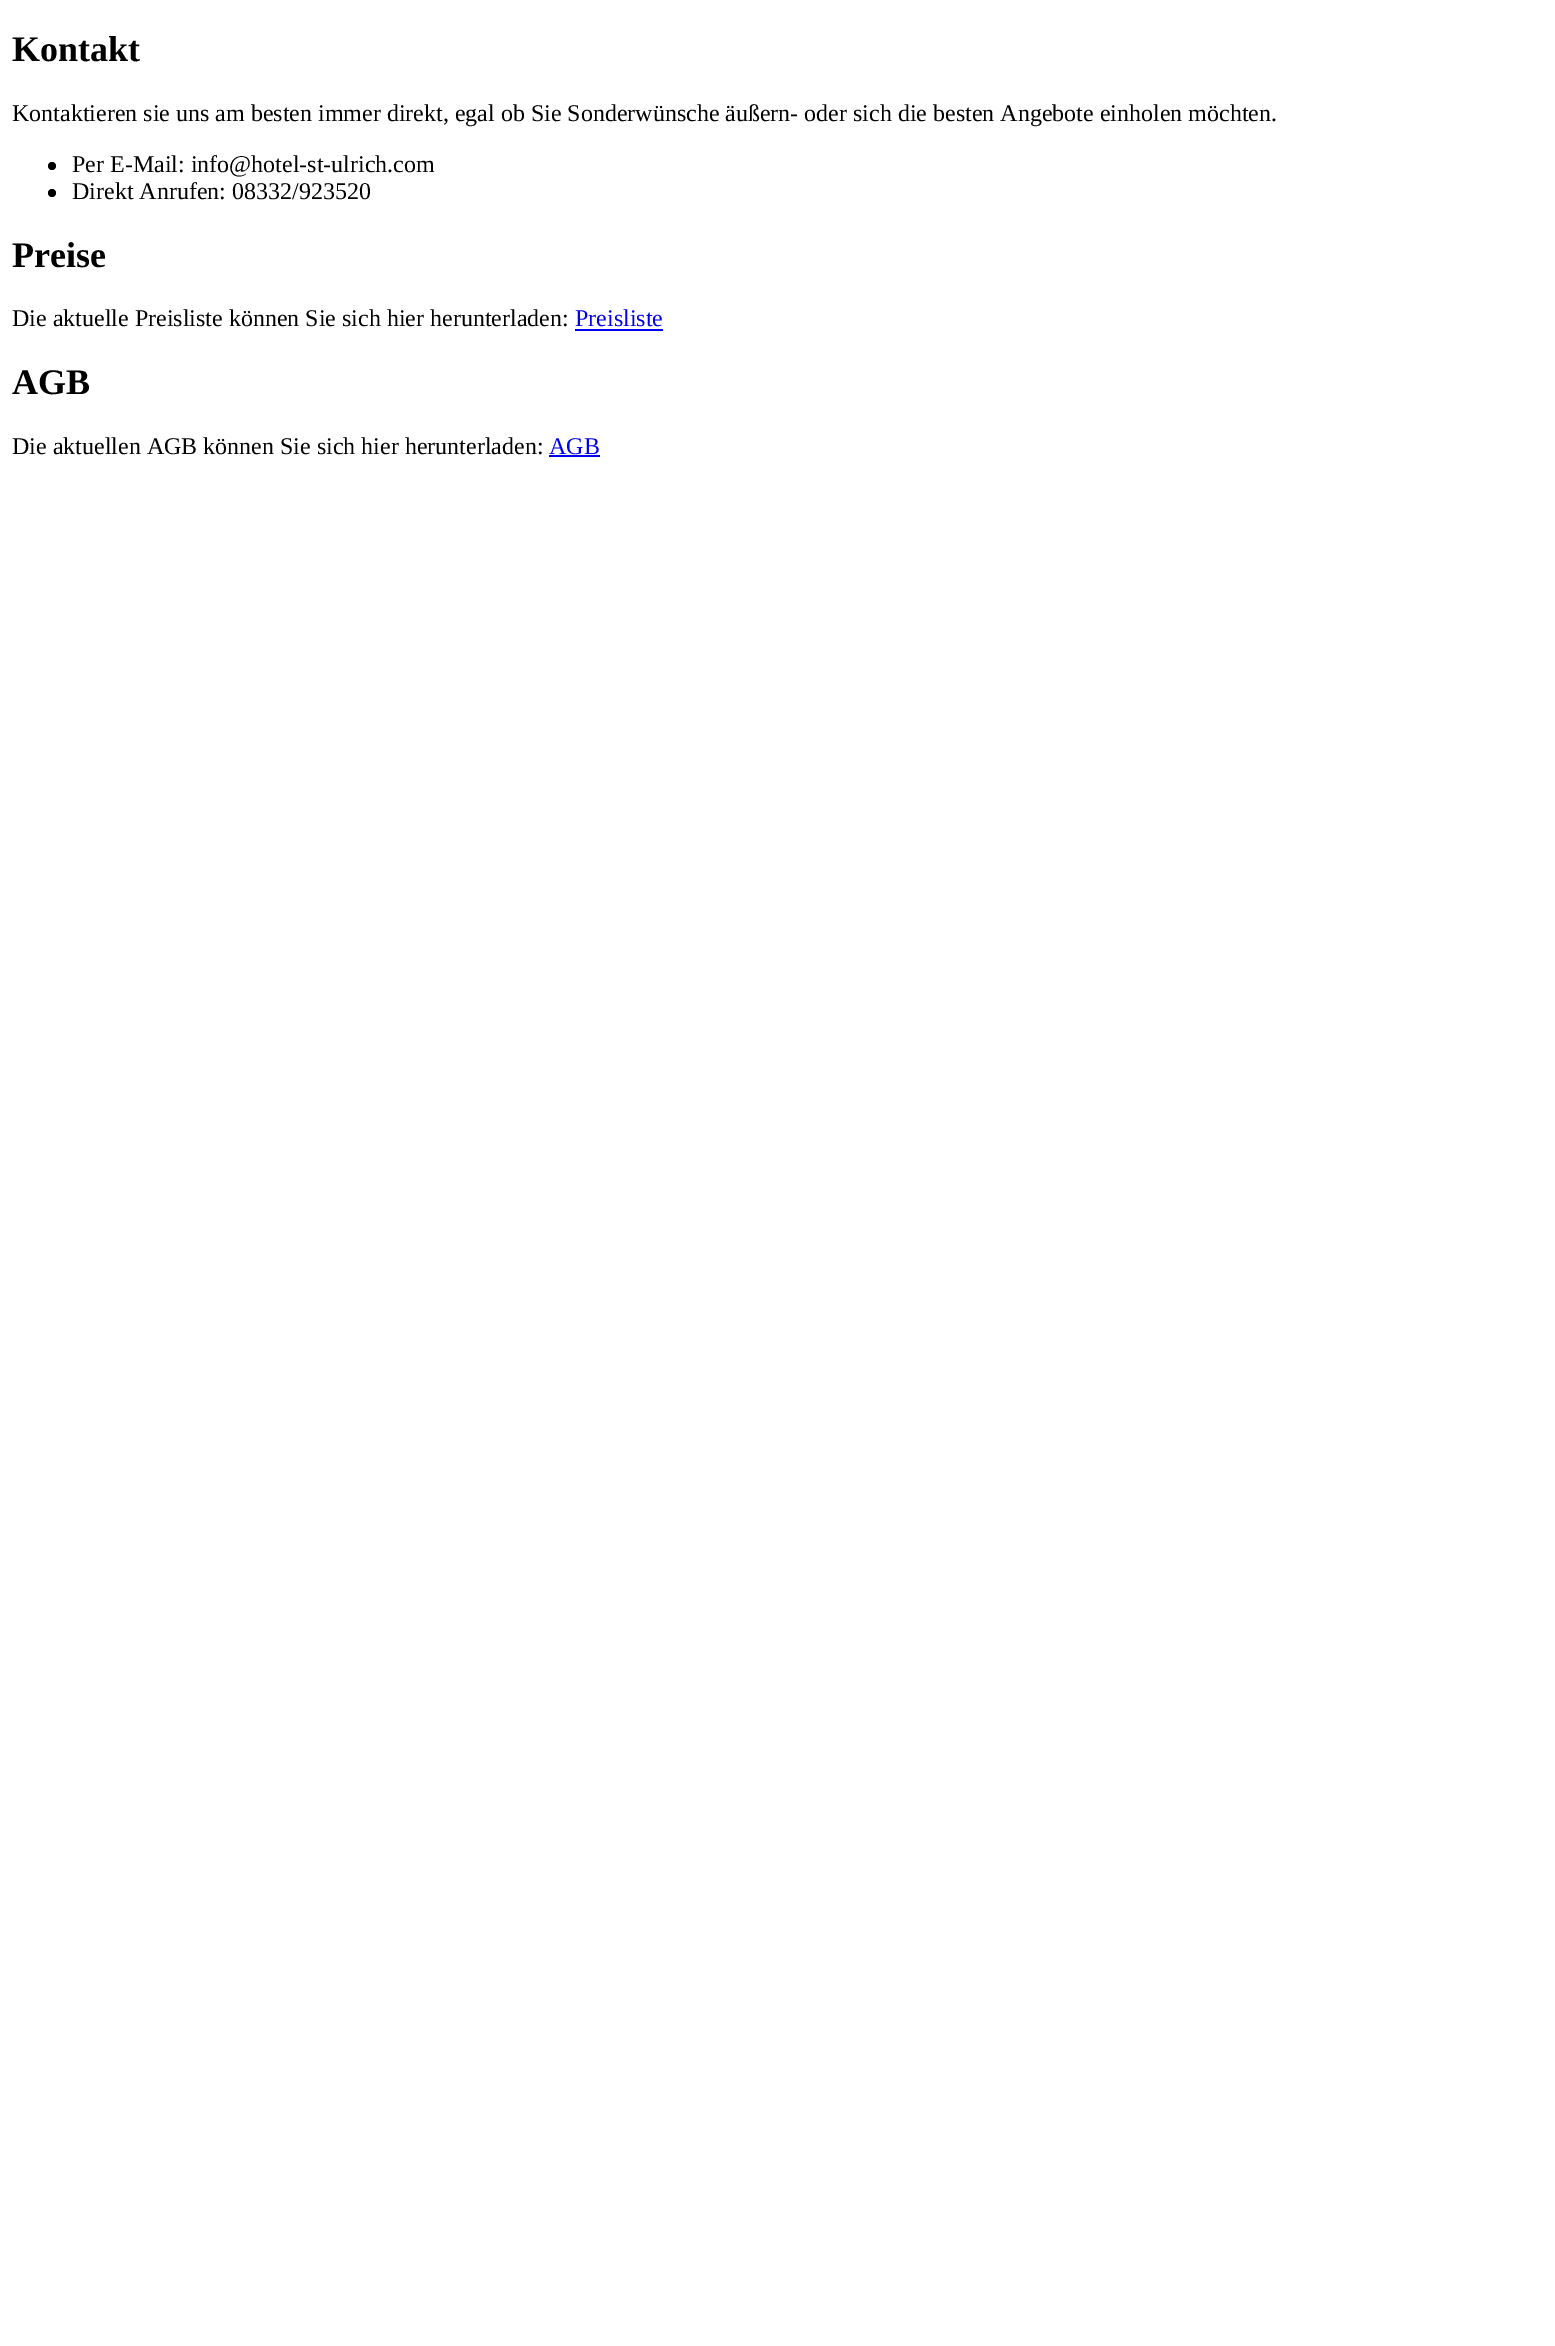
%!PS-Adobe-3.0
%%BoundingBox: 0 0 1555 2346
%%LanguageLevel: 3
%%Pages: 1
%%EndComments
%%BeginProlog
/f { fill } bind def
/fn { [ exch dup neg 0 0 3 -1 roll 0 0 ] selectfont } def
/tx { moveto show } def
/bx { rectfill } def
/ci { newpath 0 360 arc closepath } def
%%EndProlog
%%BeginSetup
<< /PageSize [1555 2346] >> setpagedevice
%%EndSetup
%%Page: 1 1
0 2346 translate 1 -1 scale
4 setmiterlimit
1 setgray
0 0 1555 2346 bx
/LiberationSerif-Bold 36 fn
0 setgray
(Kontakt) 12 61 tx
/LiberationSerif-Regular 24 fn
(Kontaktieren sie uns am besten immer direkt, egal ob Sie Sonderwünsche äußern- oder sich die besten Angebote einholen möchten.) 12 121 tx
52 166 4 ci f
(Per E-Mail: info@hotel-st-ulrich.com) 72 172 tx
52 193 4 ci f
(Direkt Anrufen: 08332/923520) 72 199 tx
/LiberationSerif-Bold 36 fn
(Preise) 12 267 tx
/LiberationSerif-Regular 24 fn
(Die aktuelle Preisliste können Sie sich hier herunterladen:) 12 326 tx
0 0 0.933 setrgbcolor
(Preisliste) 575 326 tx
575 329 88 2 bx
/LiberationSerif-Bold 36 fn
0 setgray
(AGB) 12 394 tx
/LiberationSerif-Regular 24 fn
(Die aktuellen AGB können Sie sich hier herunterladen:) 12 454 tx
0 0 0.933 setrgbcolor
(AGB) 549 454 tx
549 455 51 2 bx
showpage
%%EOF
